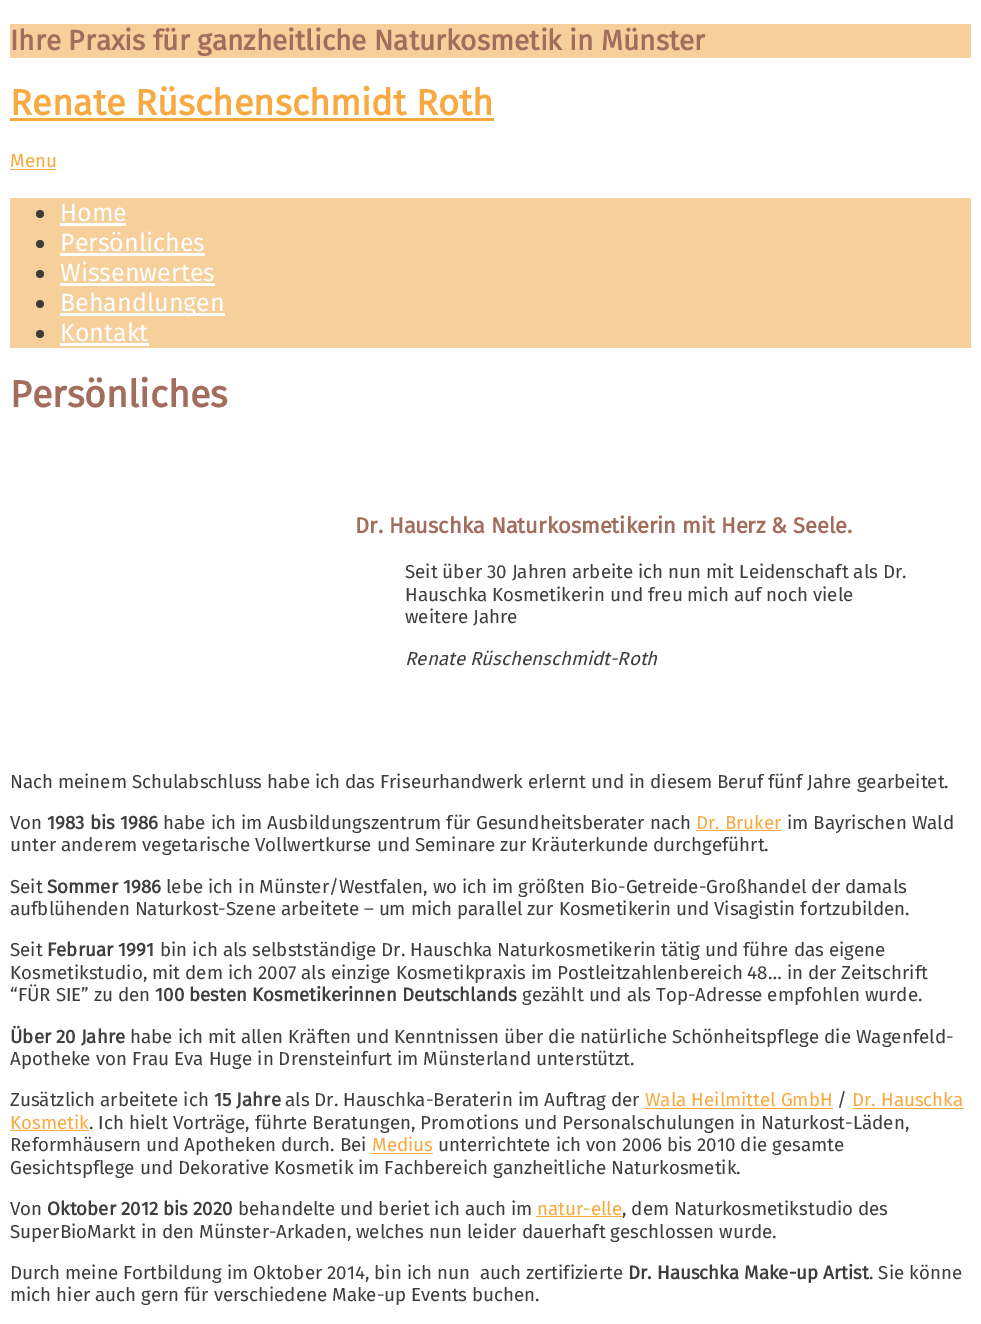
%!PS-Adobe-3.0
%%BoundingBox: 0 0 981 1324
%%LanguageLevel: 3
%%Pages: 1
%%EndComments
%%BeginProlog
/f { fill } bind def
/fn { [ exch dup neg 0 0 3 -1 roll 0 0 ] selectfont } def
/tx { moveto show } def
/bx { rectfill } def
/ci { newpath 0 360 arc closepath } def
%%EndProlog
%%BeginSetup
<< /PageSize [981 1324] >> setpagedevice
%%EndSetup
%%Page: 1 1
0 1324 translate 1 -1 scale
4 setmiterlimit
1 setgray
0 0 981 1324 bx
0.969 0.812 0.608 setrgbcolor
10 24 961 34 bx
/FiraSans-Bold 28.1 fn
0.639 0.427 0.369 setrgbcolor
(Ihre Praxis für ganzheitliche Naturkosmetik in Münster) 10 50 tx
/FiraSans-Bold 36.25 fn
0.973 0.663 0.251 setrgbcolor
(Renate Rüschenschmidt Roth) 10 115 tx
10 118 484 3 bx
/FiraSans-Regular 18.75 fn
(Menu) 10 167 tx
10 169 46 1 bx
0.969 0.812 0.608 setrgbcolor
10 198 961 150 bx
0.243 setgray
40 214 4 ci f
/FiraSans-Regular 25 fn
1 setgray
(Home) 60 221 tx
60 223 66 3 bx
0.243 setgray
40 244 4 ci f
1 setgray
(Persönliches) 60 251 tx
60 253 145 3 bx
0.243 setgray
40 274 4 ci f
1 setgray
(Wissenwertes) 60 281 tx
60 283 155 3 bx
0.243 setgray
40 304 4 ci f
1 setgray
60 313 165 3 bx
(Behandlungen) 60 311 tx
0.243 setgray
40 334 4 ci f
1 setgray
(Kontakt) 60 341 tx
60 343 89 3 bx
/FiraSans-Bold 37.5 fn
0.639 0.427 0.369 setrgbcolor
(Persönliches) 10 407 tx
/FiraSans-Bold 21.9 fn
(Dr. Hauschka Naturkosmetikerin mit Herz & Seele.) 355 533 tx
/FiraSans-Regular 18.75 fn
0.243 setgray
(Seit über 30 Jahren arbeite ich nun mit Leidenschaft als Dr.) 405 578 tx
(Hauschka Kosmetikerin und freu mich auf noch viele) 405 601 tx
(weitere Jahre) 405 623 tx
/FiraSans-Italic 18.75 fn
(Renate Rüschenschmidt-Roth) 405 665 tx
/FiraSans-Regular 18.75 fn
(Nach meinem Schulabschluss habe ich das Friseurhandwerk erlernt und in diesem Beruf fünf Jahre gearbeitet.) 10 788 tx
(Von) 10 829 tx
/FiraSans-Bold 18.75 fn
(1983 bis 1986) 47 829 tx
/FiraSans-Regular 18.75 fn
(habe ich im Ausbildungszentrum für Gesundheitsberater nach) 163 829 tx
0.973 0.663 0.251 setrgbcolor
(Dr. Bruker) 696 829 tx
696 830 85 1 bx
0.243 setgray
(im Bayrischen Wald) 787 829 tx
(unter anderem vegetarische Vollwertkurse und Seminare zur Kräuterkunde durchgeführt.) 10 851 tx
(Seit) 10 893 tx
/FiraSans-Bold 18.75 fn
(Sommer 1986) 47 893 tx
/FiraSans-Regular 18.75 fn
(lebe ich in Münster/Westfalen, wo ich im größten Bio-Getreide-Großhandel der damals) 166 893 tx
(aufblühenden Naturkost-Szene arbeitete – um mich parallel zur Kosmetikerin und Visagistin fortzubilden.) 10 915 tx
(Seit) 10 956 tx
/FiraSans-Bold 18.75 fn
(Februar 1991) 47 956 tx
/FiraSans-Regular 18.75 fn
(bin ich als selbstständige Dr. Hauschka Naturkosmetikerin tätig und führe das eigene) 160 956 tx
(Kosmetikstudio, mit dem ich 2007 als einzige Kosmetikpraxis im Postleitzahlenbereich 48… in der Zeitschrift) 10 979 tx
(“FÜR SIE” zu den) 10 1001 tx
/FiraSans-Bold 18.75 fn
(100 besten Kosmetikerinnen Deutschlands) 155 1001 tx
/FiraSans-Regular 18.75 fn
(gezählt und als Top-Adresse empfohlen wurde.) 522 1001 tx
/FiraSans-Bold 18.75 fn
(Über 20 Jahre) 10 1043 tx
/FiraSans-Regular 18.75 fn
(habe ich mit allen Kräften und Kenntnissen über die natürliche Schönheitspflege die Wagenfeld-) 130 1043 tx
(Apotheke von Frau Eva Huge in Drensteinfurt im Münsterland unterstützt.) 10 1065 tx
(Zusätzlich arbeitete ich) 10 1106 tx
/FiraSans-Bold 18.75 fn
(15 Jahre) 214 1106 tx
/FiraSans-Regular 18.75 fn
(als Dr. Hauschka-Beraterin im Auftrag der) 285 1106 tx
0.973 0.663 0.251 setrgbcolor
(Wala Heilmittel GmbH) 645 1106 tx
645 1108 188 1 bx
0.243 setgray
(/) 837 1106 tx
0.973 0.663 0.251 setrgbcolor
(Dr. Hauschka) 852 1106 tx
853 1108 111 1 bx
(Kosmetik) 10 1129 tx
10 1130 79 1 bx
0.243 setgray
(. Ich hielt Vorträge, führte Beratungen, Promotions und Personalschulungen in Naturkost-Läden,) 89 1129 tx
(Reformhäusern und Apotheken durch. Bei) 10 1151 tx
0.973 0.663 0.251 setrgbcolor
(Medius) 372 1151 tx
371 1153 62 1 bx
0.243 setgray
(unterrichtete ich von 2006 bis 2010 die gesamte) 438 1151 tx
(Gesichtspflege und Dekorative Kosmetik im Fachbereich ganzheitliche Naturkosmetik.) 10 1174 tx
(Von) 10 1215 tx
/FiraSans-Bold 18.75 fn
(Oktober 2012 bis 2020) 47 1215 tx
/FiraSans-Regular 18.75 fn
(behandelte und beriet ich auch im) 238 1215 tx
0.973 0.663 0.251 setrgbcolor
(natur-elle) 537 1215 tx
536 1216 87 1 bx
0.243 setgray
(, dem Naturkosmetikstudio des) 622 1215 tx
(SuperBioMarkt in den Münster-Arkaden, welches nun leider dauerhaft geschlossen wurde.) 10 1238 tx
(Durch meine Fortbildung im Oktober 2014, bin ich nun  auch zertifizierte) 10 1279 tx
/FiraSans-Bold 18.75 fn
(Dr. Hauschka Make-up Artist) 628 1279 tx
/FiraSans-Regular 18.75 fn
(. Sie könne) 869 1279 tx
(mich hier auch gern für verschiedene Make-up Events buchen.) 10 1301 tx
showpage
%%EOF
